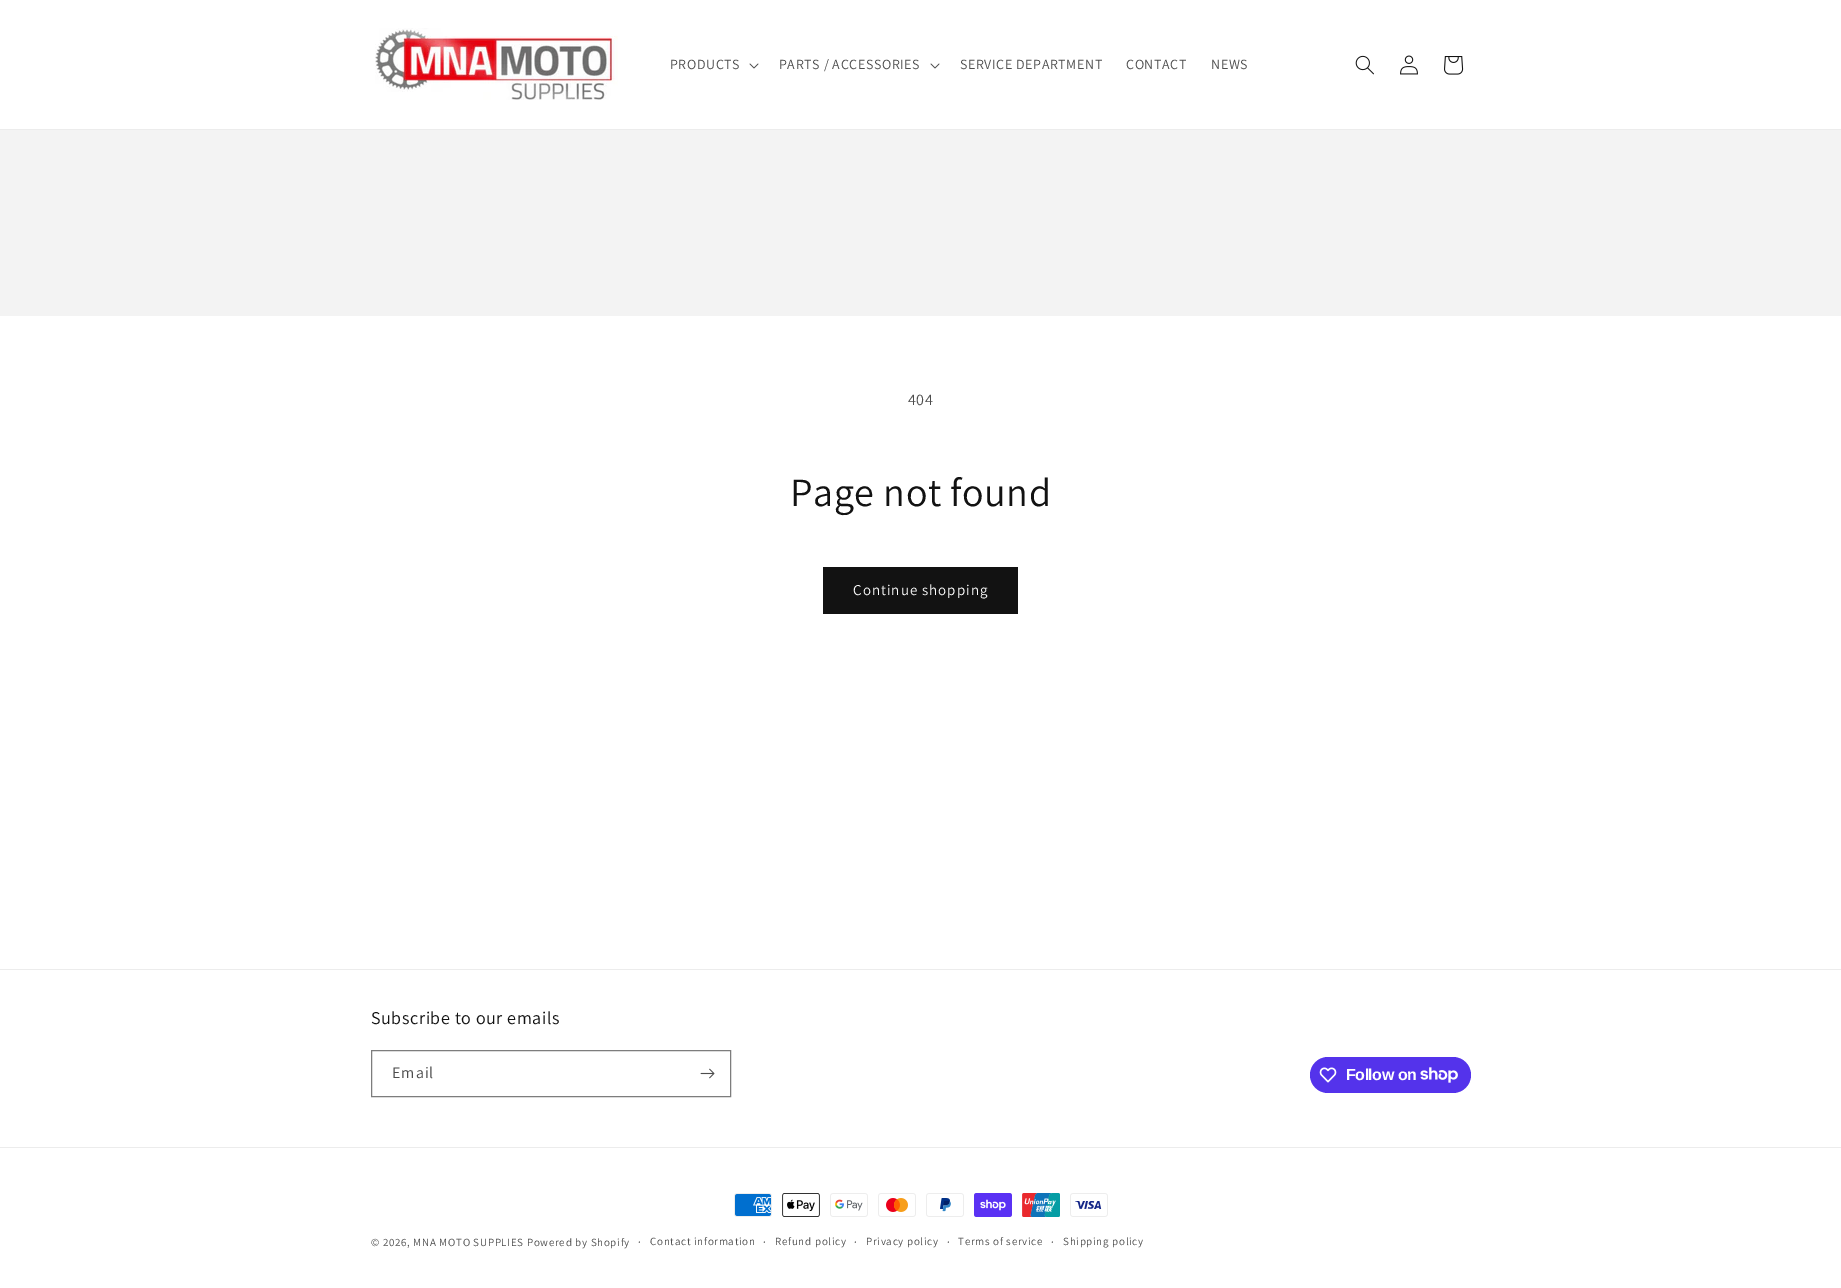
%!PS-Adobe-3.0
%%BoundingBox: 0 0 1841 1288
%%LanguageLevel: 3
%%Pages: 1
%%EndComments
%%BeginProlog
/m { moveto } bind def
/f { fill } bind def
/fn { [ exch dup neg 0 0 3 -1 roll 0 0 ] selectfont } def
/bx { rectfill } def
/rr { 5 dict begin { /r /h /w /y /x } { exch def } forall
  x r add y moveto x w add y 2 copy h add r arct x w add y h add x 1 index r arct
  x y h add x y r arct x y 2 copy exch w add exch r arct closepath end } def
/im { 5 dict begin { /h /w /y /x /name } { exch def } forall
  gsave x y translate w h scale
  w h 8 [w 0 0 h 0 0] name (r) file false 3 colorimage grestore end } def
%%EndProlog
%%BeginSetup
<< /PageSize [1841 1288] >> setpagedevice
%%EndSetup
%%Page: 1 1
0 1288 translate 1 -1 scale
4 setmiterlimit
1 setgray
0 0 1841 1288 bx
0.925 setgray
0 129 1841 1 bx
(image0.raw) 375 28 243 72 im
/Assistant-Regular 14 fn
0.302 setgray
670 69 m 0.6 0 (PRODUCTS) ashow
(image1.raw) 749 63 10 6 im
779 69 m 0.6 0 (PARTS / ACCESSORIES) ashow
(image1.raw) 930 63 10 6 im
960 69 m 0.6 0 (SERVICE DEPARTMENT) ashow
1126 69 m 0.6 0 (CONTACT) ashow
1211 69 m 0.6 0 (NEWS) ashow
(image2.raw) 1355 55 19 20 im
(image3.raw) 1400 55 18 20 im
(image4.raw) 1444 56 20 19 im
0.953 setgray
0 130 1841 186 bx
/Assistant-Regular 16 fn
0.302 setgray
908 405 m 0.6 0 (404) ashow
/Assistant-Regular 40 fn
0.071 setgray
790 506 m 0.6 0 (Page not found) ashow
823 567 195 47 bx
/Assistant-Regular 15 fn
1 setgray
853 595 m 1 0 (Continue shopping) ashow
0.925 setgray
0 969 1841 1 bx
/Assistant-Regular 18 fn
0.071 setgray
371 1024 m 0.6 0 (Subscribe to our emails) ashow
0.49 setgray
371.5 1050.5 359 46 rectstroke
/Assistant-Regular 16 fn
0.302 setgray
392 1078 m 1 0 (Email) ashow
(image5.raw) 700 1068 15 11 im
0.329 0.2 0.922 setrgbcolor
1310 1057 161 36 18 rr f
(image6.raw) 1319 1067 18 16 im
/LiberationSans-Bold 16 fn
1 setgray
1346 1080 m -0.5 0 (Follow on) ashow
(image7.raw) 1420 1067 38 16 im
0.925 setgray
0 1147 1841 1 bx
(image8.raw) 734 1193 38 24 im
(image9.raw) 782 1193 38 24 im
(image10.raw) 830 1193 38 24 im
(image11.raw) 878 1193 38 24 im
(image12.raw) 926 1193 38 24 im
(image13.raw) 974 1193 38 24 im
(image14.raw) 1022 1193 38 24 im
(image15.raw) 1070 1193 38 24 im
/Assistant-Regular 11 fn
0.302 setgray
371 1246 m 0.7 0 (© 2026, MNA MOTO SUPPLIES Powered by Shopify) ashow
/Assistant-Regular 12 fn
638 1246 m 0.7 0 (·) ashow
/Assistant-Regular 11 fn
650 1245 m 0.7 0 (Contact information) ashow
/Assistant-Regular 12 fn
763 1246 m 0.7 0 (·) ashow
/Assistant-Regular 11 fn
775 1245 m 0.7 0 (Refund policy) ashow
/Assistant-Regular 12 fn
854 1246 m 0.7 0 (·) ashow
/Assistant-Regular 11 fn
866 1245 m 0.7 0 (Privacy policy) ashow
/Assistant-Regular 12 fn
947 1246 m 0.7 0 (·) ashow
/Assistant-Regular 11 fn
958 1245 m 0.7 0 (Terms of service) ashow
/Assistant-Regular 12 fn
1051 1246 m 0.7 0 (·) ashow
/Assistant-Regular 11 fn
1063 1245 m 0.7 0 (Shipping policy) ashow
showpage
%%EOF
